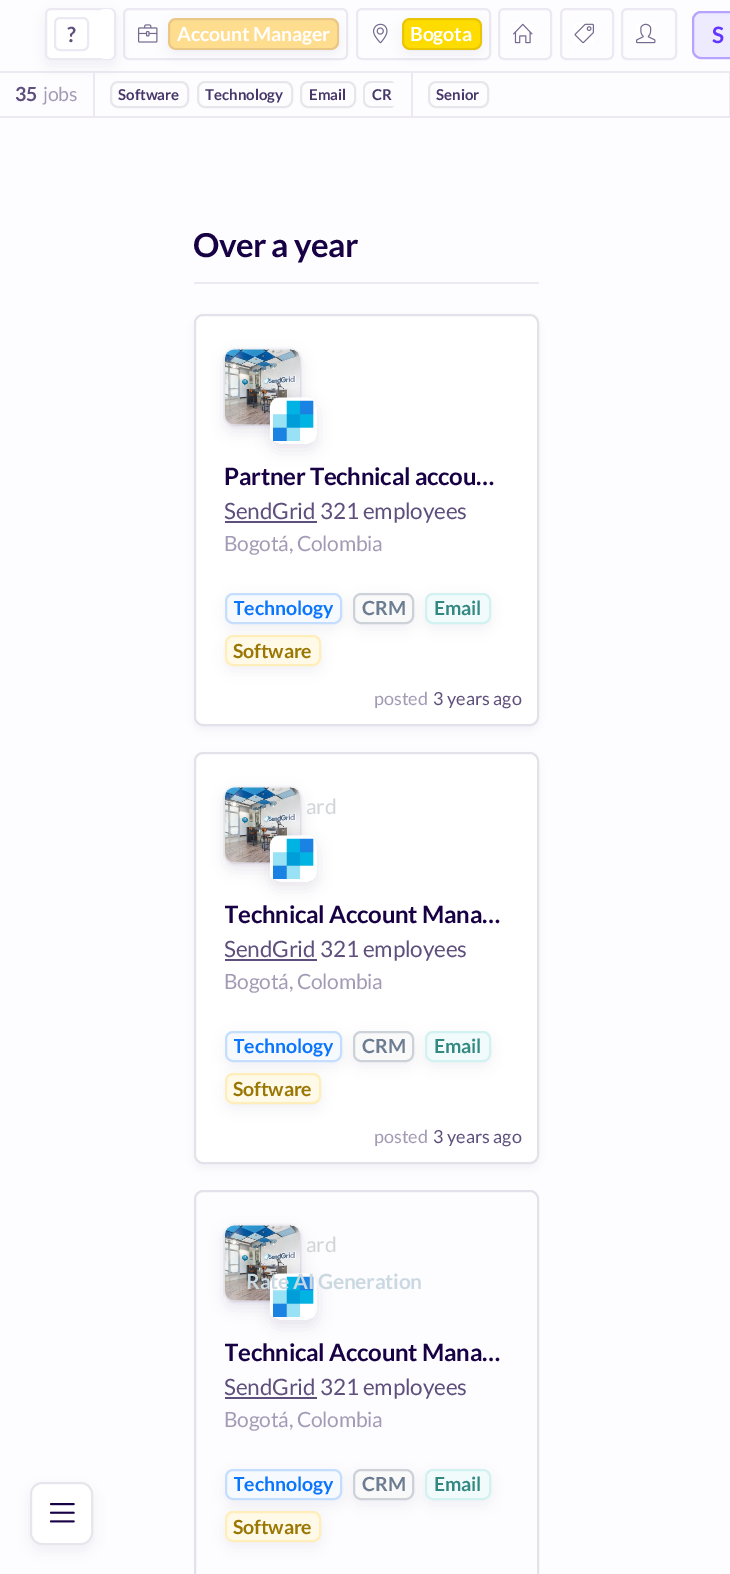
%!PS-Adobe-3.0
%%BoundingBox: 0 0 730 1574
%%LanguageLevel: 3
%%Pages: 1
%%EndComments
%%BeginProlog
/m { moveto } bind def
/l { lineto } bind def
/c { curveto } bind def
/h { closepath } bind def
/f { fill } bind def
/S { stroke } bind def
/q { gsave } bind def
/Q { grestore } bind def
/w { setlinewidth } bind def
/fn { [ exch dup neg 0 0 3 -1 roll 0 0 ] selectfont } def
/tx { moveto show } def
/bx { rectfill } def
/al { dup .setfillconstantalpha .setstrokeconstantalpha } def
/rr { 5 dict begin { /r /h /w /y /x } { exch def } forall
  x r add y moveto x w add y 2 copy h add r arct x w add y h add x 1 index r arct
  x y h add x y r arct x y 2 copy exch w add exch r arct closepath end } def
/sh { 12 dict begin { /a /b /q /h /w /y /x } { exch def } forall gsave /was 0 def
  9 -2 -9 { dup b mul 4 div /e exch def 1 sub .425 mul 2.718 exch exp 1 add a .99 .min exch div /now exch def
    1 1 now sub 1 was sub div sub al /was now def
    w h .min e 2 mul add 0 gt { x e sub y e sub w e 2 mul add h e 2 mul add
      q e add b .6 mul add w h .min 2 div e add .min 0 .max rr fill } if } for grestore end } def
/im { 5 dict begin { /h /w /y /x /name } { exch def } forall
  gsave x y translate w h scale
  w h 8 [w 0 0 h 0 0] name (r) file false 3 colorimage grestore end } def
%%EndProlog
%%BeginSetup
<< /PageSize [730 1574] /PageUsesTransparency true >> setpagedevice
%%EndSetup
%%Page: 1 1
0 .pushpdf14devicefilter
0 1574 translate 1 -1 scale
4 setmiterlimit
0.992 0.992 1 setrgbcolor
0 0 730 1574 bx
0.925 0.914 0.949 setrgbcolor
0 71 730 2 bx
2 w
124 9 223 50 5 rr S
(image0.raw) 138 24 20 19 im
0 116 730 2 bx
93 72 2 45 bx
0.91 0.902 0.925 setrgbcolor
111 82 77 25 7 rr S
0.098 0.016 0.271 setrgbcolor
45 14 71 52 6 7.5 0.05 sh
1 setgray
46 9 69 50 5 rr q f Q
0.925 0.914 0.949 setrgbcolor
S
55 18 33 32 5 rr S
/Lato-Bold 21 fn
0.369 0.31 0.49 setrgbcolor
67 42 m -0.25 0 (?) ashow
1 setgray
99 9 15 50 6 rr f
0.098 0.016 0.271 setrgbcolor
168 23 171 31 8 7.5 0.05 sh
1 0.867 0.561 setrgbcolor
168 18 171 32 8 rr f
0.1 al
0.098 0.016 0.271 setrgbcolor
169 19 169 30 7 rr S
/Lato-Bold 19.5 fn
1 al
1 setgray
177 41 m -0.15 0 (Account Manager) ashow
0.925 0.914 0.949 setrgbcolor
357 9 133 50 5 rr S
(image1.raw) 373 23 15 21 im
0.098 0.016 0.271 setrgbcolor
402 23 80 31 8 7.5 0.05 sh
1 0.863 0 setrgbcolor
402 18 80 32 8 rr f
0.1 al
0.098 0.016 0.271 setrgbcolor
403 19 78 30 7 rr S
1 al
1 setgray
410 41 m -0.15 0 (Bogota) ashow
0.925 0.914 0.949 setrgbcolor
499 9 52 50 5 rr S
(image2.raw) 513 23 20 21 im
561 9 52 50 5 rr S
(image3.raw) 574 23 20 21 im
622 9 54 50 5 rr S
(image4.raw) 636 23 20 21 im
0.937 0.922 1 setrgbcolor
701 11 m 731 11 l 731 59 l 701 59 l 696 59 692 55 692 50 c 692 20 l 692 15 696 11 701 11 c h f
0.4 al
0.384 0.212 1 setrgbcolor
693 12 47 46 8 rr S
/Lato-Bold 22.5 fn
1 al
(S) 712 43 tx
/Lato-Bold 19.5 fn
0.369 0.31 0.49 setrgbcolor
15 101 m -0.15 0 (35) ashow
/Lato-Regular 19.5 fn
0.639 0.608 0.71 setrgbcolor
43 101 m -0.15 0 (jobs) ashow
0.925 0.914 0.949 setrgbcolor
411 72 2 45 bx
/Lato-Bold 15 fn
0.278 0.212 0.416 setrgbcolor
(Software) 118 100 tx
0.91 0.902 0.925 setrgbcolor
198 82 94 25 7 rr S
0.278 0.212 0.416 setrgbcolor
(Technology) 205 100 tx
0.91 0.902 0.925 setrgbcolor
301 82 54 25 7 rr S
0.278 0.212 0.416 setrgbcolor
(Email) 309 100 tx
0.91 0.902 0.925 setrgbcolor
371 81 m 366.5 81 363 84.5 363 89 c 363 100 l 363 104.5 366.5 108 371 108 c 390 108 l 392 108 393.5 107 394.5 106 c 371 106 l 367.5 106 365 103.5 365 100 c 365 89 l 365 85.5 367.5 83 371 83 c 394.5 83 l 393.5 82 392 81 390 81 c h f
0.278 0.212 0.416 setrgbcolor
(CR) 372 100 tx
0.925 0.914 0.949 setrgbcolor
729 72 1 45 bx
0.91 0.902 0.925 setrgbcolor
429 82 59 25 7 rr S
0.278 0.212 0.416 setrgbcolor
(Senior) 436 100 tx
0.925 0.914 0.949 setrgbcolor
194 282 345 2 bx
/Lato-Bold 33 fn
0.094 0 0.271 setrgbcolor
193 257 m -0.6 0 (Over a year) ashow
0.098 0.016 0.271 setrgbcolor
195 320 342 409 8 5 0.05 sh
1 setgray
195 315 343 410 8 rr q f Q
0.89 0.882 0.914 setrgbcolor
S
0.098 0.016 0.271 setrgbcolor
225 350 75 75 9 1.5 0.2 sh
225 356 75 75 9 7.5 0.1 sh
(image5.raw) 224 349 76 76 im
q
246 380 m 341 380 l 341 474 l 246 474 l h 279 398 m 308 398 l 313 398 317 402 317 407 c 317 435 l 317 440 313 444 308 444 c 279 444 l 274 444 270 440 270 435 c 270 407 l 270 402 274 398 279 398 c h eoclip newpath
270 404 47 46 9 7.5 0.1 sh
Q
(image6.raw) 269 397 45 44 im
/Lato-Bold 24 fn
0.094 0 0.271 setrgbcolor
224 485 m -0.25 0 (Partner Technical accou…) ashow
0.369 0.31 0.49 setrgbcolor
225 521 92 2 bx
/Lato-Regular 22.5 fn
224 519 m -0.15 0 (SendGrid 321 employees) ashow
/Lato-Regular 21 fn
0.639 0.608 0.71 setrgbcolor
224 551 m -0.25 0 (Bogotá, Colombia) ashow
0.098 0.016 0.271 setrgbcolor
225 597 117 32 8 7.5 0.05 sh
0.965 0.98 1 setrgbcolor
225 593 117 31 8 rr f
0.2 al
0 0.439 0.984 setrgbcolor
226 594 115 29 7 rr S
1 al
0.098 0.016 0.271 setrgbcolor
353 597 61 32 8 7.5 0.05 sh
225 639 96 32 8 7.5 0.05 sh
q
234 588 99 39 rectclip
/Lato-Bold 19.5 fn
0.043 0.463 0.984 setrgbcolor
233 615 m -0.15 0 (Technology) ashow
Q
0.976 0.976 0.98 setrgbcolor
353 593 61 31 8 rr f
0.2 al
0.11 0.208 0.329 setrgbcolor
354 594 59 29 7 rr S
1 al
0.098 0.016 0.271 setrgbcolor
425 597 66 32 8 7.5 0.05 sh
/Lato-Bold 19.5 fn
0.427 0.49 0.569 setrgbcolor
362 615 m -0.15 0 (CRM) ashow
0.949 0.984 0.984 setrgbcolor
425 593 66 31 8 rr f
0.2 al
0.306 0.804 0.769 setrgbcolor
426 594 64 29 7 rr S
1 al
0.204 0.533 0.51 setrgbcolor
434 615 m -0.15 0 (Email) ashow
1 0.976 0.906 setrgbcolor
225 635 96 31 8 rr f
0.2 al
0.996 0.769 0.02 setrgbcolor
226 636 94 29 7 rr S
1 al
0.604 0.467 0.012 setrgbcolor
233 658 m -0.15 0 (Software) ashow
/Lato-Regular 18 fn
0.639 0.608 0.71 setrgbcolor
(posted) 374 705 tx
0.369 0.31 0.49 setrgbcolor
(3 years ago) 433 705 tx
0.098 0.016 0.271 setrgbcolor
195 758 342 409 8 5 0.05 sh
1 setgray
195 753 343 410 8 rr q f Q
0.89 0.882 0.914 setrgbcolor
S
0.098 0.016 0.271 setrgbcolor
225 794 75 75 9 7.5 0.1 sh
/Lato-Regular 21 fn
0.82 0.835 0.843 setrgbcolor
306 814 m -0.25 0 (ard) ashow
0.098 0.016 0.271 setrgbcolor
225 788 75 75 9 1.5 0.2 sh
(image7.raw) 224 787 76 76 im
q
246 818 m 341 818 l 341 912 l 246 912 l h 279 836 m 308 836 l 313 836 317 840 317 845 c 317 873 l 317 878 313 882 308 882 c 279 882 l 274 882 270 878 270 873 c 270 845 l 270 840 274 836 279 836 c h eoclip newpath
270 842 47 46 9 7.5 0.1 sh
Q
(image8.raw) 269 835 45 44 im
q
225 896 282 34 rectclip
/Lato-Bold 24 fn
0.094 0 0.271 setrgbcolor
224 923 m -0.25 0 (Technical Account Mana…) ashow
Q
0.369 0.31 0.49 setrgbcolor
225 959 92 2 bx
/Lato-Regular 22.5 fn
224 957 m -0.15 0 (SendGrid 321 employees) ashow
/Lato-Regular 21 fn
0.639 0.608 0.71 setrgbcolor
224 989 m -0.25 0 (Bogotá, Colombia) ashow
0.098 0.016 0.271 setrgbcolor
225 1035 117 32 8 7.5 0.05 sh
0.965 0.98 1 setrgbcolor
225 1031 117 31 8 rr f
0.2 al
0 0.439 0.984 setrgbcolor
226 1032 115 29 7 rr S
1 al
0.098 0.016 0.271 setrgbcolor
353 1035 61 32 8 7.5 0.05 sh
225 1077 96 32 8 7.5 0.05 sh
q
234 1026 99 39 rectclip
/Lato-Bold 19.5 fn
0.043 0.463 0.984 setrgbcolor
233 1053 m -0.15 0 (Technology) ashow
Q
0.976 0.976 0.98 setrgbcolor
353 1031 61 31 8 rr f
0.2 al
0.11 0.208 0.329 setrgbcolor
354 1032 59 29 7 rr S
1 al
0.098 0.016 0.271 setrgbcolor
425 1035 66 32 8 7.5 0.05 sh
/Lato-Bold 19.5 fn
0.427 0.49 0.569 setrgbcolor
362 1053 m -0.15 0 (CRM) ashow
0.949 0.984 0.984 setrgbcolor
425 1031 66 31 8 rr f
0.2 al
0.306 0.804 0.769 setrgbcolor
426 1032 64 29 7 rr S
1 al
0.204 0.533 0.51 setrgbcolor
434 1053 m -0.15 0 (Email) ashow
1 0.976 0.906 setrgbcolor
225 1073 96 31 8 rr f
0.2 al
0.996 0.769 0.02 setrgbcolor
226 1074 94 29 7 rr S
1 al
0.604 0.467 0.012 setrgbcolor
233 1096 m -0.15 0 (Software) ashow
/Lato-Regular 18 fn
0.639 0.608 0.71 setrgbcolor
(posted) 374 1143 tx
0.369 0.31 0.49 setrgbcolor
(3 years ago) 433 1143 tx
0.89 0.882 0.914 setrgbcolor
195 1191 343 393 8 rr S
0.098 0.016 0.271 setrgbcolor
225 1232 75 75 9 7.5 0.1 sh
/Lato-Regular 21 fn
0.82 0.835 0.843 setrgbcolor
306 1252 m -0.25 0 (ard) ashow
0.098 0.016 0.271 setrgbcolor
225 1226 75 75 9 1.5 0.2 sh
(image7.raw) 224 1225 76 76 im
q
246 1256 m 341 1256 l 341 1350 l 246 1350 l h 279 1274 m 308 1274 l 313 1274 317 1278 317 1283 c 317 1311 l 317 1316 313 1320 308 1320 c 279 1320 l 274 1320 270 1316 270 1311 c 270 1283 l 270 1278 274 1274 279 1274 c h eoclip newpath
270 1280 47 46 9 7.5 0.1 sh
Q
(image8.raw) 269 1273 45 44 im
q
225 1334 282 34 rectclip
/Lato-Bold 24 fn
0.094 0 0.271 setrgbcolor
224 1361 m -0.25 0 (Technical Account Mana…) ashow
Q
0.369 0.31 0.49 setrgbcolor
225 1397 92 2 bx
/Lato-Regular 22.5 fn
224 1395 m -0.15 0 (SendGrid 321 employees) ashow
/Lato-Regular 21 fn
0.639 0.608 0.71 setrgbcolor
224 1427 m -0.25 0 (Bogotá, Colombia) ashow
0.098 0.016 0.271 setrgbcolor
225 1473 117 32 8 7.5 0.05 sh
0.965 0.98 1 setrgbcolor
225 1469 117 31 8 rr f
0.2 al
0 0.439 0.984 setrgbcolor
226 1470 115 29 7 rr S
1 al
0.098 0.016 0.271 setrgbcolor
353 1473 61 32 8 7.5 0.05 sh
225 1515 96 32 8 7.5 0.05 sh
q
234 1464 99 39 rectclip
/Lato-Bold 19.5 fn
0.043 0.463 0.984 setrgbcolor
233 1491 m -0.15 0 (Technology) ashow
Q
0.976 0.976 0.98 setrgbcolor
353 1469 61 31 8 rr f
0.2 al
0.11 0.208 0.329 setrgbcolor
354 1470 59 29 7 rr S
1 al
0.098 0.016 0.271 setrgbcolor
425 1473 66 32 8 7.5 0.05 sh
/Lato-Bold 19.5 fn
0.427 0.49 0.569 setrgbcolor
362 1491 m -0.15 0 (CRM) ashow
0.949 0.984 0.984 setrgbcolor
425 1469 66 31 8 rr f
0.2 al
0.306 0.804 0.769 setrgbcolor
426 1470 64 29 7 rr S
1 al
0.204 0.533 0.51 setrgbcolor
434 1491 m -0.15 0 (Email) ashow
1 0.976 0.906 setrgbcolor
225 1511 96 31 8 rr f
0.2 al
0.996 0.769 0.02 setrgbcolor
226 1512 94 29 7 rr S
1 al
0.604 0.467 0.012 setrgbcolor
233 1534 m -0.15 0 (Software) ashow
0.098 0.016 0.271 setrgbcolor
30 1488 63 63 12 7.5 0.05 sh
1 setgray
31 1483 61 61 11 rr q f Q
0.91 0.902 0.925 setrgbcolor
S
(image9.raw) 50 1503 25 20 im
/Lato-Bold 21 fn
0.792 0.847 0.882 setrgbcolor
246 1289 m -0.25 0 (Rate AI Generation) ashow
.poppdf14devicefilter showpage
%%EOF
